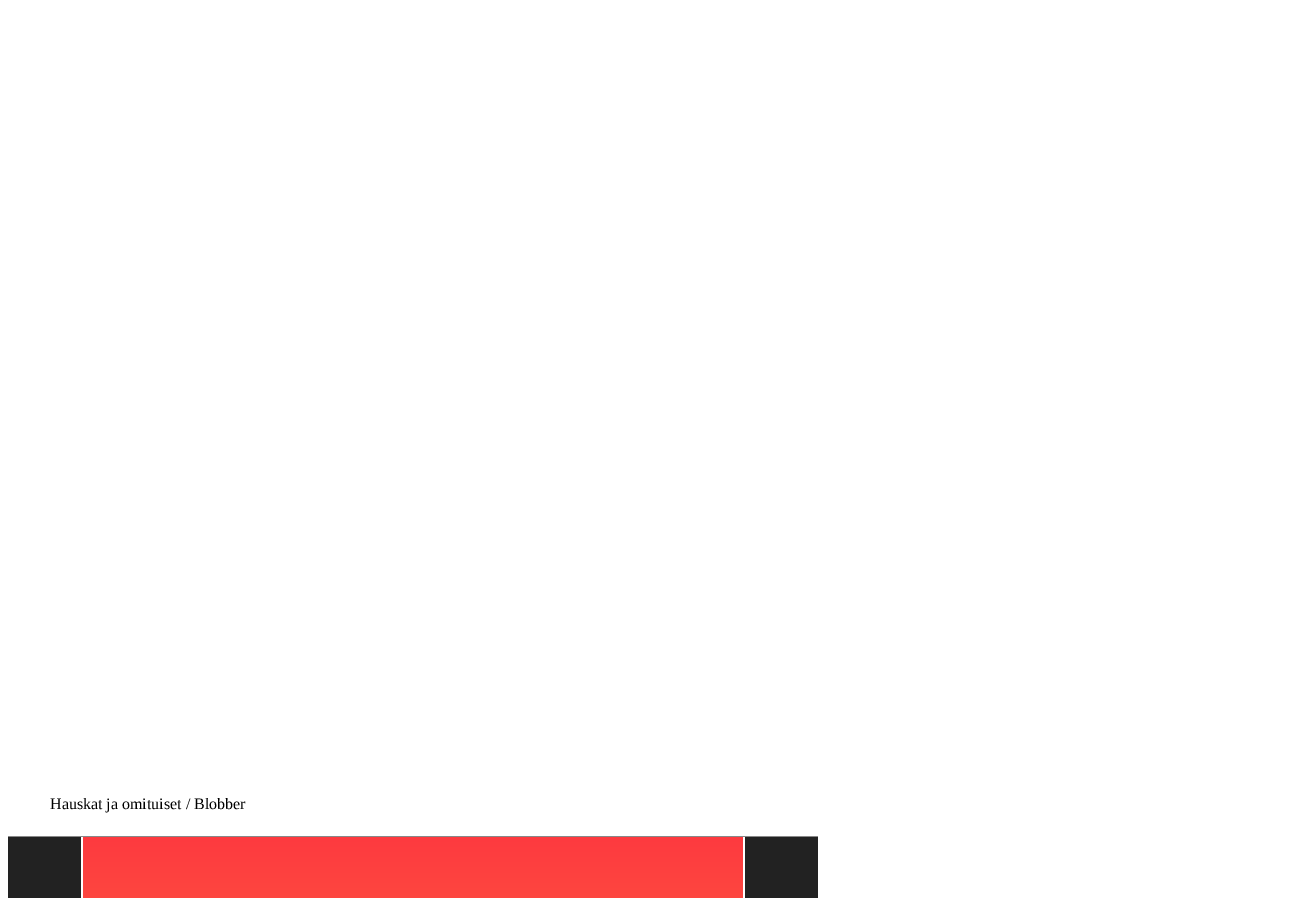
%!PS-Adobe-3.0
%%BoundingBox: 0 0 1311 898
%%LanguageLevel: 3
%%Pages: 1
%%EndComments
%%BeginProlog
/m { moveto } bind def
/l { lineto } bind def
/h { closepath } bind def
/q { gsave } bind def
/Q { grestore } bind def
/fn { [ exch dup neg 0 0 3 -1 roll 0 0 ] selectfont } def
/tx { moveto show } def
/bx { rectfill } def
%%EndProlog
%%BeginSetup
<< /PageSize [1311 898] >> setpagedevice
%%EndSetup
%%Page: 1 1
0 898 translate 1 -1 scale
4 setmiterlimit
1 setgray
0 0 1311 898 bx
/LiberationSerif-Regular 16 fn
0 setgray
(Hauskat ja omituiset / Blobber) 50 809 tx
0.133 setgray
8 837 810 61 bx
0.533 setgray
8 836 810 1 bx
1 setgray
743 837 2 61 bx
81 837 2 61 bx
q 83 837 m 743 837 l 743 898 l 83 898 l h clip newpath
<< /ShadingType 2 /ColorSpace /DeviceRGB /Coords [413 837 413 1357] /Extend [true true] /Function << /FunctionType 2 /Domain [0 1] /C0 [0.992 0.227 0.251] /C1 [0.992 0.631 0.22] /N 1 >> >> shfill Q
showpage
%%EOF
